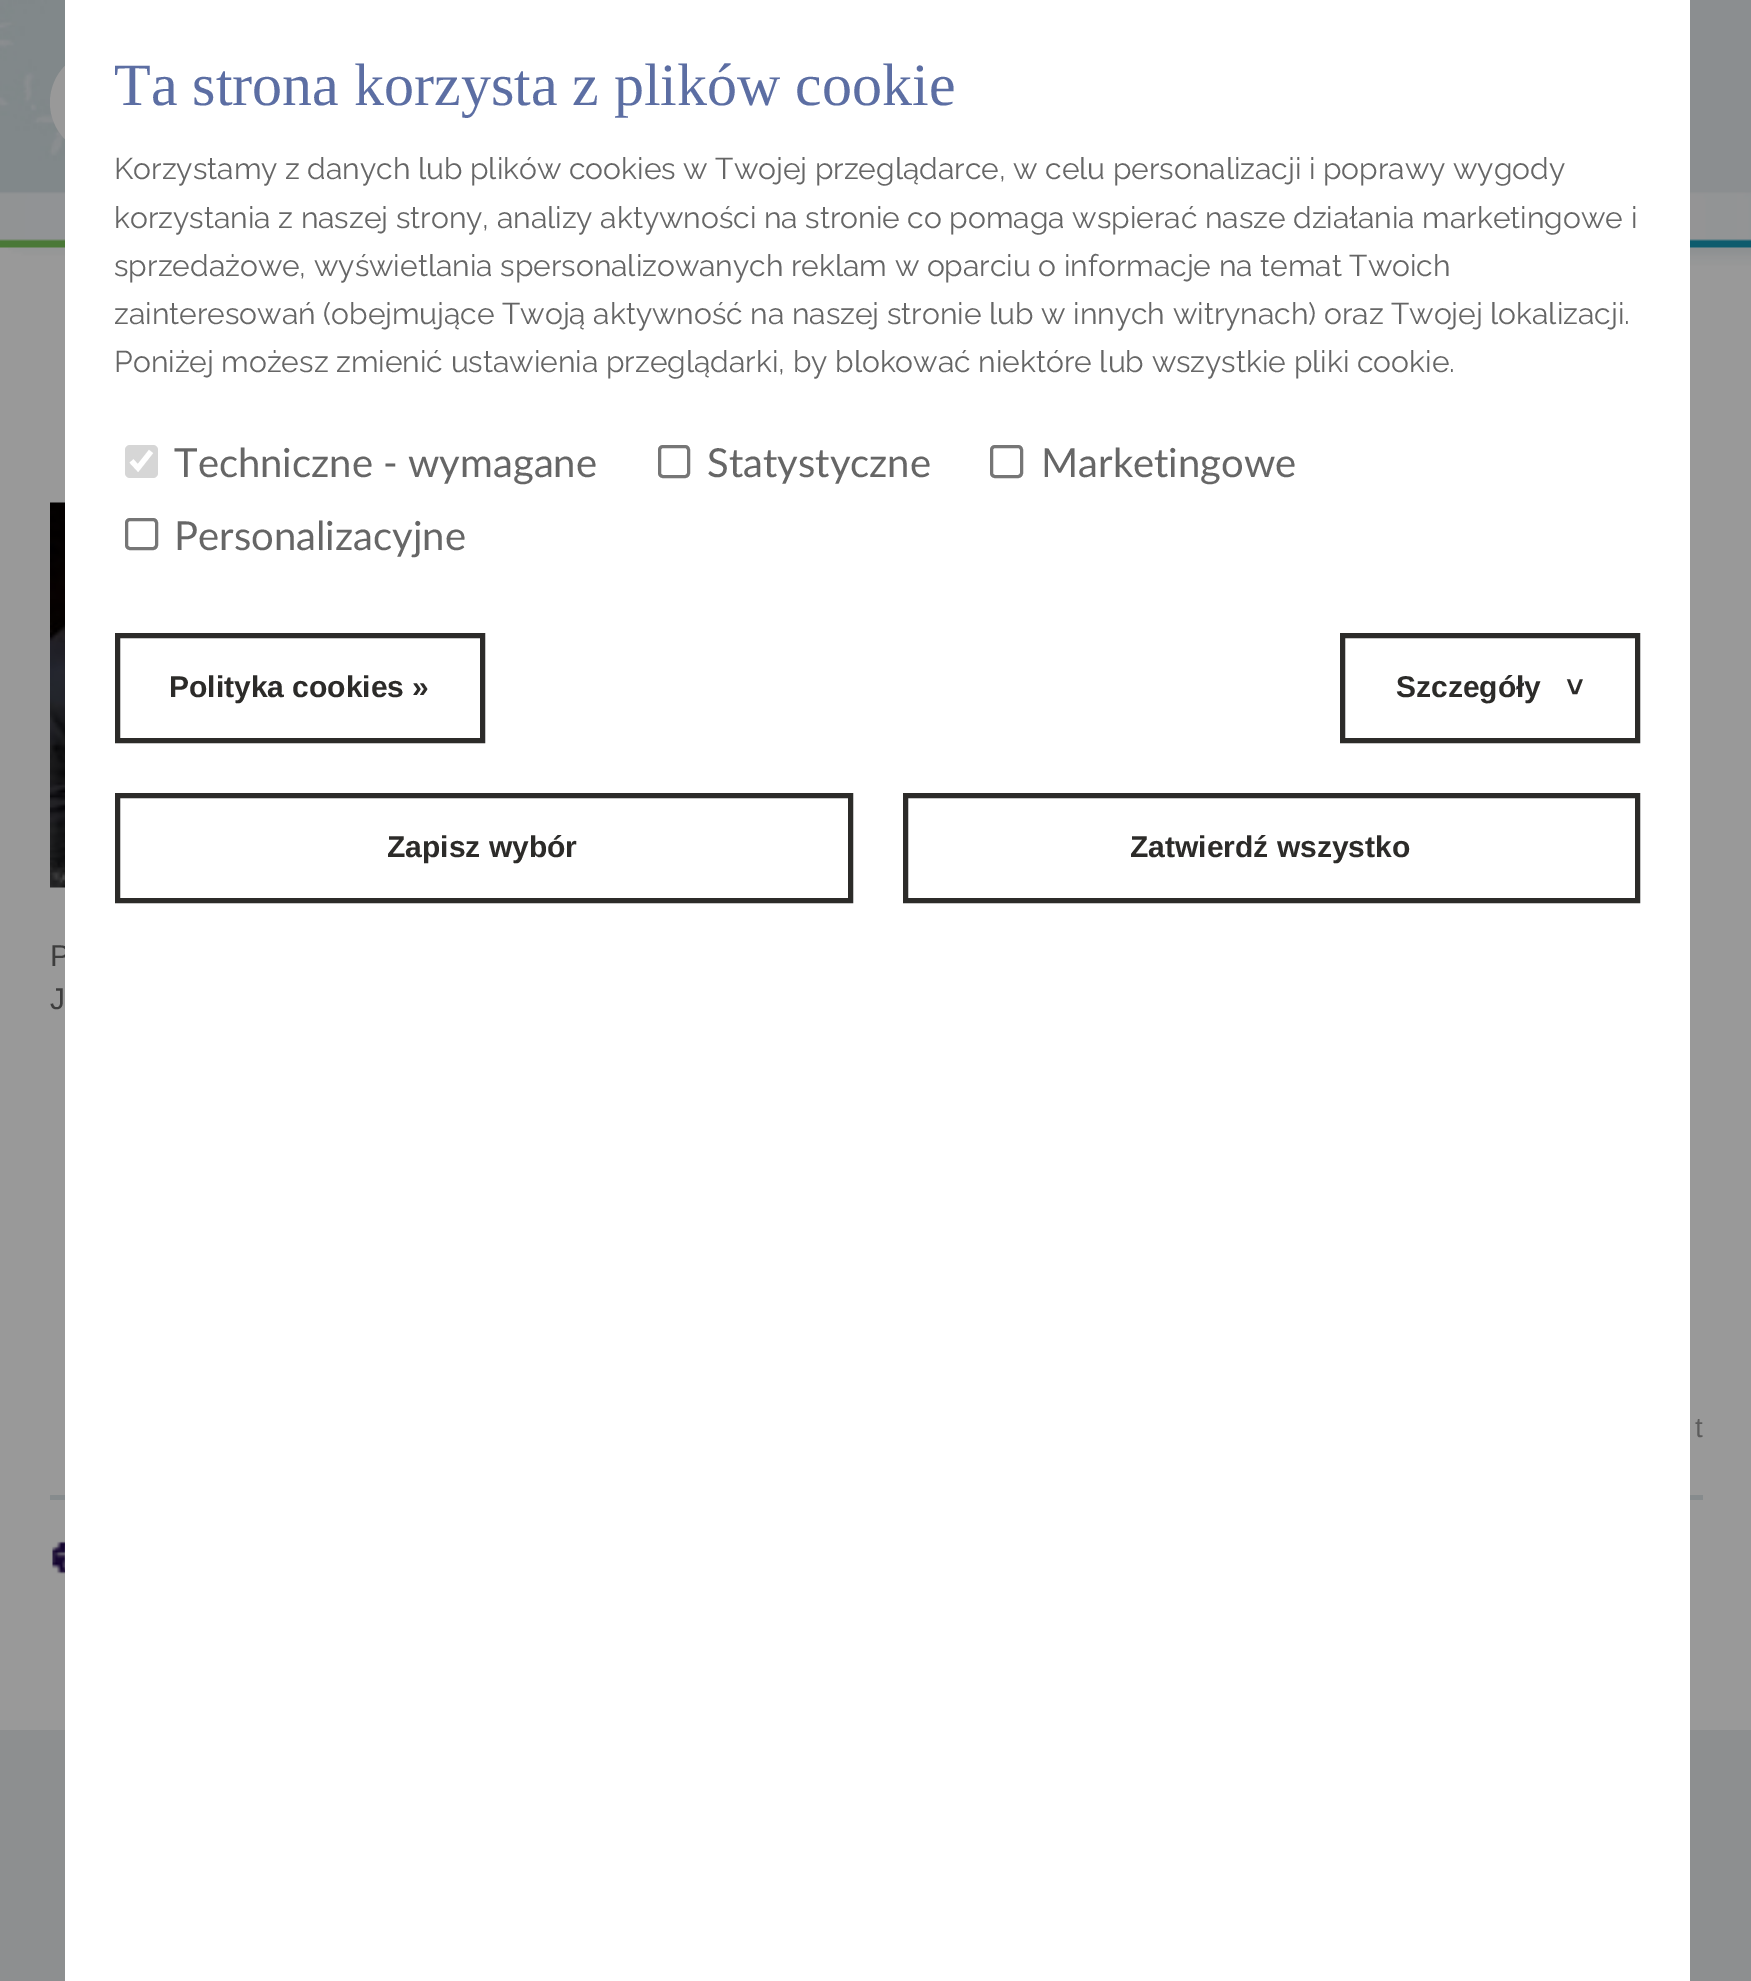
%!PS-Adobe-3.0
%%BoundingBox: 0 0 1751 1981
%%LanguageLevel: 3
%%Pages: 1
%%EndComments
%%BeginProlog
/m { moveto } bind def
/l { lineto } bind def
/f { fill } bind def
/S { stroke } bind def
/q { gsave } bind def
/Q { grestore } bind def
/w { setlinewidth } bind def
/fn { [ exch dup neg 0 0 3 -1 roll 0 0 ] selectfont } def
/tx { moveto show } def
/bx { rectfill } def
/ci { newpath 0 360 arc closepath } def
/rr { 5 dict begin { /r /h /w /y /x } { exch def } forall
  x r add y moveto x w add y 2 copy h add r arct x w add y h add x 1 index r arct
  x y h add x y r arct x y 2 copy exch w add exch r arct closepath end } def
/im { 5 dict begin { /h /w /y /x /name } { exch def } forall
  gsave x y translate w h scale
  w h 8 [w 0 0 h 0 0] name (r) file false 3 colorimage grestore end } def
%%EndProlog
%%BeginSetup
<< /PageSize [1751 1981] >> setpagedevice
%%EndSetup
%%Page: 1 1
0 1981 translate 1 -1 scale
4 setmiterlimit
0.553 0.561 0.565 setrgbcolor
0 0 1751 1981 bx
0.6 setgray
0 247 1751 1483 bx
(image1.raw) 8 247 1743 20 im
(image0.raw) 0 0 1751 248 im
102.5 102.5 52.5 ci f
/LiberationSans-Regular 30 fn
0.239 setgray
(P) 50 966 tx
0.525 0.545 0.553 setrgbcolor
50 1495 1653 5 bx
1 setgray
65 0 1625 1981 bx
/LiberationSerif-Regular 60 fn
0.361 0.431 0.639 setrgbcolor
(Ta strona korzysta z plików cookie) 114 105 tx
/Raleway-Regular 30 fn
0.4 setgray
(Korzystamy z danych lub plików cookies w Twojej przeglądarce, w celu personalizacji i poprawy wygody) 114 179 tx
(korzystania z naszej strony, analizy aktywności na stronie co pomaga wspierać nasze działania marketingowe i) 114 228 tx
(sprzedażowe, wyświetlania spersonalizowanych reklam w oparciu o informacje na temat Twoich) 114 276 tx
(zainteresowań \(obejmujące Twoją aktywność na naszej stronie lub w innych witrynach\) oraz Twojej lokalizacji.) 114 324 tx
(Poniżej możesz zmienić ustawienia przeglądarki, by blokować niektóre lub wszystkie pliki cookie.) 114 372 tx
0.839 setgray
125 445 33 33 5 rr f
1 setgray
5.2 w
131.5 461 m 138 468 l 151 451.5 l S
/Lato-Regular 40 fn
0.4 setgray
(Techniczne - wymagane) 174 477 tx
0.463 setgray
3 w
659.5 446.5 29 30 3.5 rr S
0.4 setgray
(Statystyczne) 707 477 tx
0.463 setgray
991.5 446.5 30 30 3.5 rr S
0.4 setgray
(Marketingowe) 1041 477 tx
0.463 setgray
126.5 519.5 30 29 3.5 rr S
0.4 setgray
(Personalizacyjne) 174 550 tx
0.173 0.169 0.161 setrgbcolor
5 w
117.5 635.5 365 105 rectstroke
/LiberationSans-Bold 30 fn
(Polityka cookies ») 169 697 tx
1342.5 635.5 295 105 rectstroke
(Szczegóły) 1396 697 tx
q 1565 678 translate 90 rotate 0 0 m (>) show Q
117.5 795.5 733 105 rectstroke
(Zapisz wybór) 387 857 tx
905.5 795.5 732 105 rectstroke
(Zatwierdź wszystko) 1130 857 tx
(image2.raw) 50 502 15 386 im
/LiberationSans-Regular 30 fn
0.239 setgray
(J) 50 1009 tx
/LiberationSans-Regular 28 fn
0.361 setgray
(t) 1695 1437 tx
(image3.raw) 52 1541 13 33 im
showpage
%%EOF
